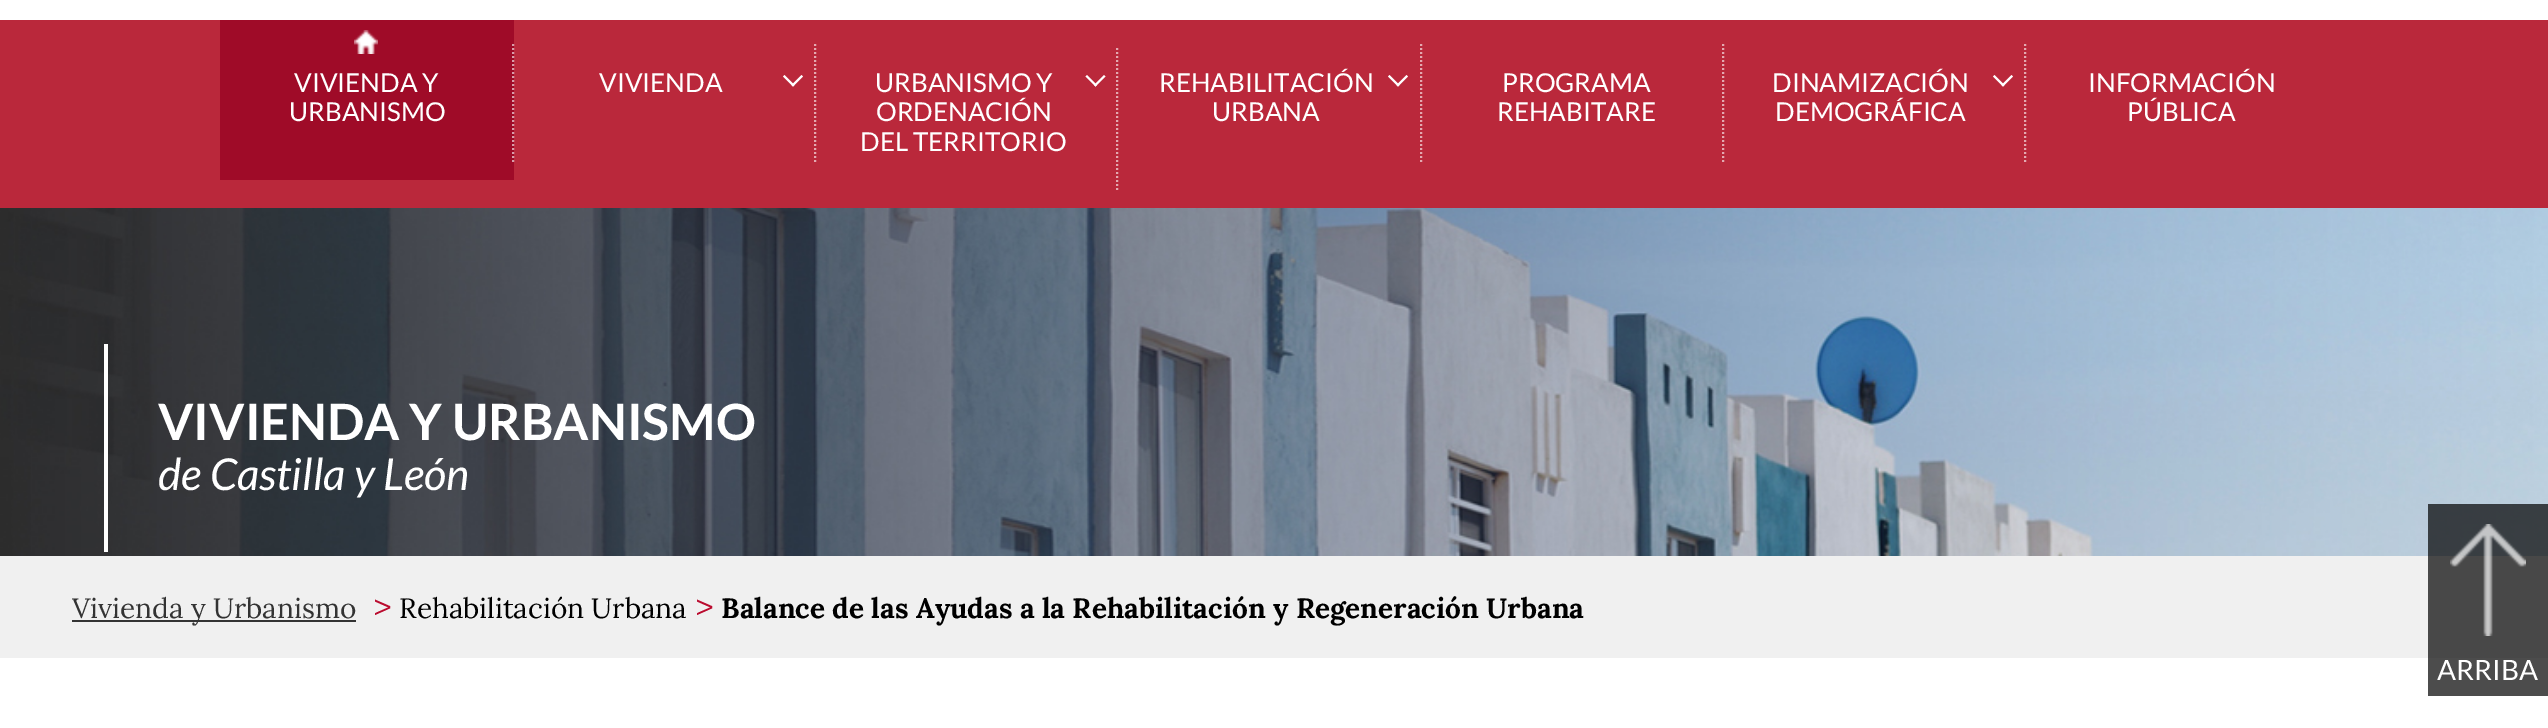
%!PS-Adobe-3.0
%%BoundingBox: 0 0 2548 728
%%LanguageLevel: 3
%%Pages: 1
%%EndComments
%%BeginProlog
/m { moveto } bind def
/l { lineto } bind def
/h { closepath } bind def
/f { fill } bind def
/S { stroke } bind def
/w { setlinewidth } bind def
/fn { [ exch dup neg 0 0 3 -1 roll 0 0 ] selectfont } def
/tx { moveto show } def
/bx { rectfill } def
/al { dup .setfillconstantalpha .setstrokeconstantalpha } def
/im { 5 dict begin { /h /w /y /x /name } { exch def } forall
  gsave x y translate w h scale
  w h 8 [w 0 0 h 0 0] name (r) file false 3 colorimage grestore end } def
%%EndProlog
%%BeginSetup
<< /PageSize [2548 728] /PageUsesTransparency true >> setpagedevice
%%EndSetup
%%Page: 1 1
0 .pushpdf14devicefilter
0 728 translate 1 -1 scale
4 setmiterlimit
1 setgray
0 0 2548 728 bx
0.729 0.157 0.231 setrgbcolor
0 20 2548 188 bx
0.624 0.043 0.157 setrgbcolor
220 20 294 160 bx
(image0.raw) 354 30 24 24 im
/Lato-Regular 26 fn
1 setgray
(VIVIENDA Y) 294 92 tx
(URBANISMO) 289 121 tx
0.851 0.616 0.663 setrgbcolor
2 w
[2 2] 0 setdash
513 44 m 513 164 l S
1 setgray
(VIVIENDA) 599 92 tx
801.5 75 m 803 76.5 l 793 86.5 l 791.5 85 l h f
784.5 75 m 794.5 85 l 793 86.5 l 783 76.5 l h f
0.89 0.663 0.694 setrgbcolor
815 44 m 815 164 l S
1 setgray
(URBANISMO Y) 875 92 tx
1104 75 m 1105.5 76.5 l 1095.5 86.5 l 1094 85 l h f
1087 75 m 1097 85 l 1095.5 86.5 l 1085.5 76.5 l h f
(ORDENACIÓN) 876 121 tx
(DEL TERRITORIO) 860 151 tx
0.89 0.663 0.694 setrgbcolor
1117 48 m 1117 190 l S
1 setgray
(REHABILITACIÓN) 1159 92 tx
1406.5 75 m 1408 76.5 l 1398 86.5 l 1396.5 85 l h f
1389.5 75 m 1399.5 85 l 1398 86.5 l 1388 76.5 l h f
(URBANA) 1212 121 tx
0.89 0.663 0.694 setrgbcolor
1421 44 m 1421 164 l S
1 setgray
(PROGRAMA) 1502 92 tx
(REHABITARE) 1497 121 tx
0.89 0.663 0.694 setrgbcolor
1723 44 m 1723 164 l S
1 setgray
(DINAMIZACIÓN) 1772 92 tx
2011.5 75 m 2013 76.5 l 2003 86.5 l 2001.5 85 l h f
1994.5 75 m 2004.5 85 l 2003 86.5 l 1993 76.5 l h f
(DEMOGRÁFICA) 1775 121 tx
0.89 0.663 0.694 setrgbcolor
2025 44 m 2025 164 l S
1 setgray
(INFORMACIÓN) 2088 92 tx
(PÚBLICA) 2127 121 tx
(image1.raw) 0 208 2548 348 im
104 344 4 208 bx
/Lato-Bold 50 fn
(VIVIENDA Y URBANISMO) 158 440 tx
/Lato-Italic 44 fn
(de Castilla y León) 158 490 tx
0.941 setgray
0 556 2548 102 bx
0.2 setgray
72 620 284 2 bx
/Lora-Regular 28 fn
(Vivienda y Urbanismo) 72 618 tx
/Lora-Regular 34 fn
0.729 0.047 0.184 setrgbcolor
(>) 373 618 tx
/Lora-Regular 28 fn
0 setgray
(Rehabilitación Urbana) 399 618 tx
/Lora-Regular 34 fn
0.729 0.047 0.184 setrgbcolor
(>) 695 618 tx
/Lora-Bold 28 fn
0 setgray
(Balance de las Ayudas a la Rehabilitación y Regeneración Urbana) 721 618 tx
0.7 al
2428 504 120 192 bx
1 al
(image2.raw) 2450 524 76 112 im
/Lato-Regular 28 fn
1 setgray
(ARRIBA) 2437 680 tx
.poppdf14devicefilter showpage
%%EOF
